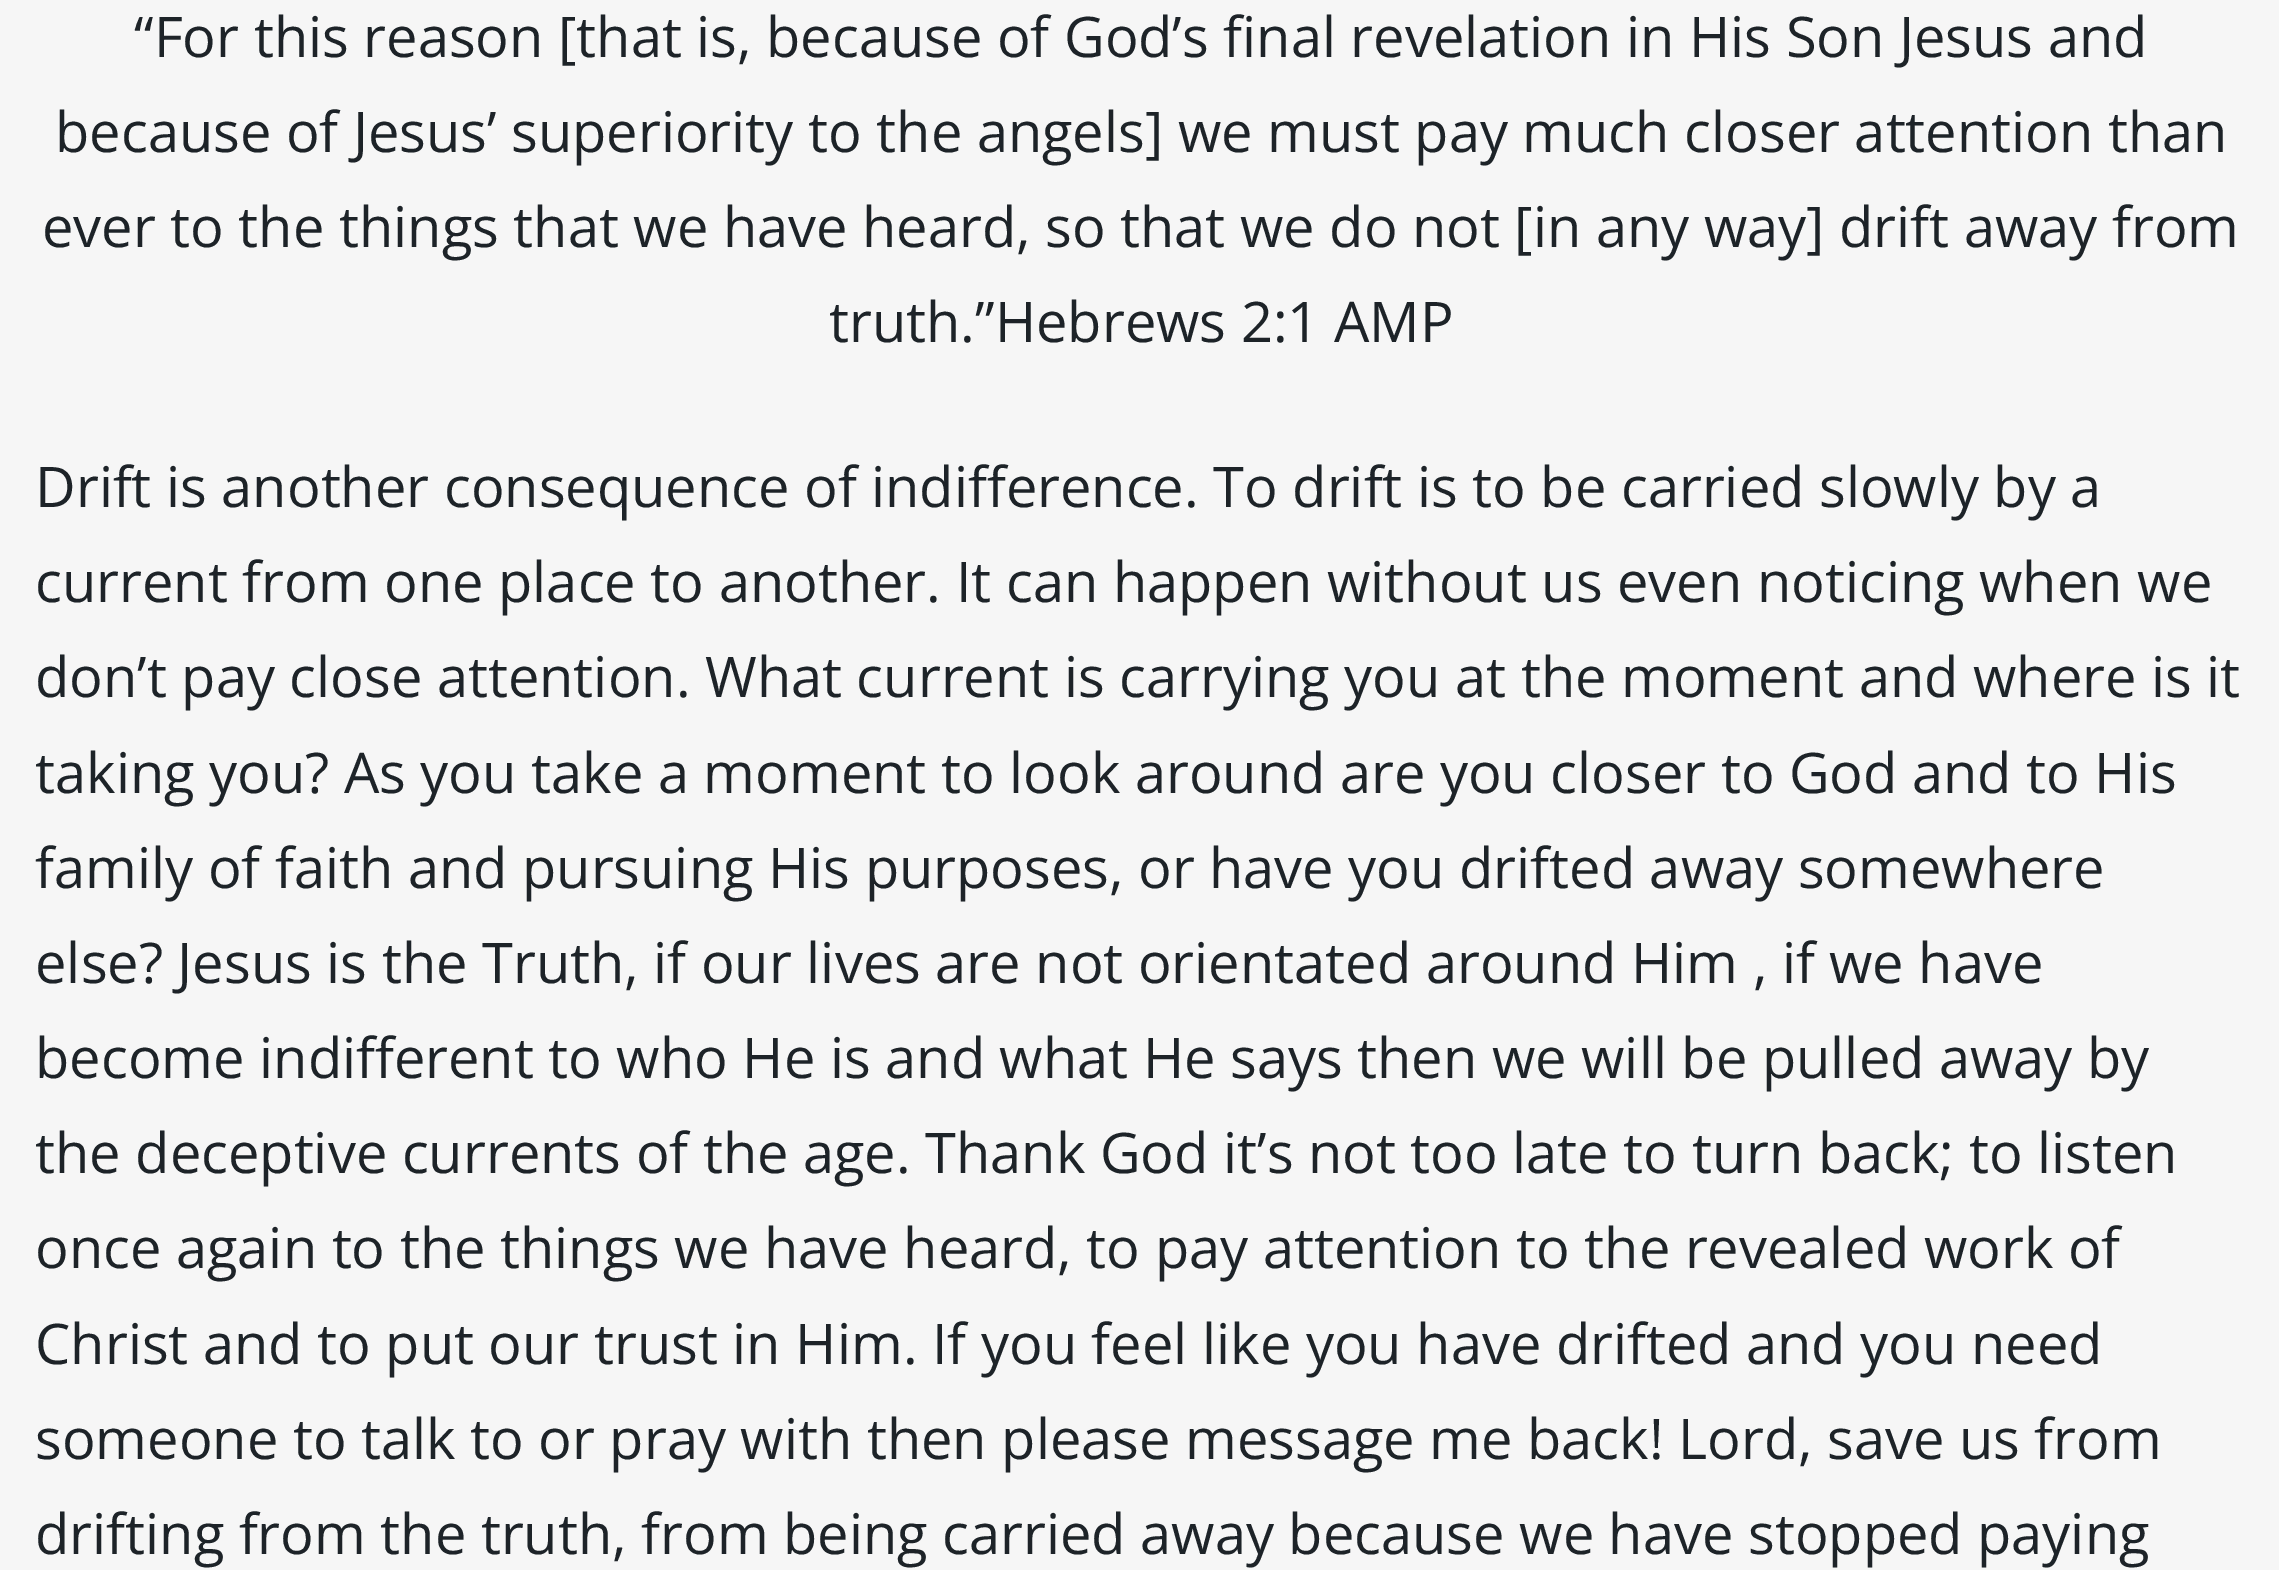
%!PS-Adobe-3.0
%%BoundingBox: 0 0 2279 1570
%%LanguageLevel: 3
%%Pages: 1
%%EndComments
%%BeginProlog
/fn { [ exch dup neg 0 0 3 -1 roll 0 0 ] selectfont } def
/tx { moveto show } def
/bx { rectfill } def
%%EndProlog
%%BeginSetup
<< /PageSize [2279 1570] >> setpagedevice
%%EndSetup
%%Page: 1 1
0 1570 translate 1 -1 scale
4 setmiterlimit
0.965 setgray
0 0 2279 1570 bx
/OpenSans-Regular 56 fn
0.114 0.137 0.157 setrgbcolor
(“For this reason [that is, because of God’s final revelation in His Son Jesus and) 134 57 tx
(because of Jesus’ superiority to the angels] we must pay much closer attention than) 55 152 tx
(ever to the things that we have heard, so that we do not [in any way] drift away from) 42 247 tx
(truth.”Hebrews 2:1 AMP) 829 342 tx
(Drift is another consequence of indifference. To drift is to be carried slowly by a) 35 507 tx
(current from one place to another. It can happen without us even noticing when we) 35 602 tx
(don’t pay close attention. What current is carrying you at the moment and where is it) 35 697 tx
(taking you? As you take a moment to look around are you closer to God and to His) 35 793 tx
(family of faith and pursuing His purposes, or have you drifted away somewhere) 35 888 tx
(else? Jesus is the Truth, if our lives are not orientated around Him , if we have) 35 983 tx
(become indifferent to who He is and what He says then we will be pulled away by) 35 1078 tx
(the deceptive currents of the age. Thank God it’s not too late to turn back; to listen) 35 1173 tx
(once again to the things we have heard, to pay attention to the revealed work of) 35 1268 tx
(Christ and to put our trust in Him. If you feel like you have drifted and you need) 35 1364 tx
(someone to talk to or pray with then please message me back! Lord, save us from) 35 1459 tx
(drifting from the truth, from being carried away because we have stopped paying) 35 1554 tx
showpage
%%EOF
